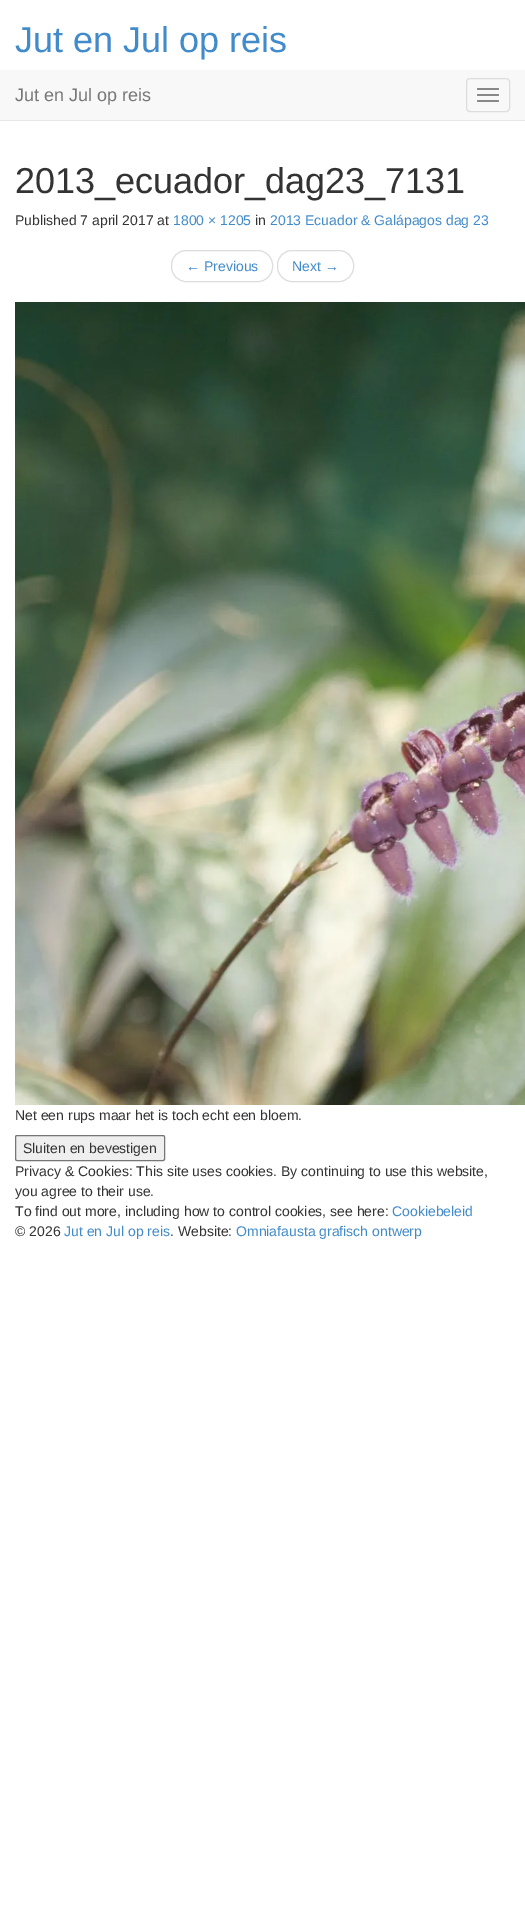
%!PS-Adobe-3.0
%%BoundingBox: 0 0 525 1926
%%LanguageLevel: 3
%%Pages: 1
%%EndComments
%%BeginProlog
/f { fill } bind def
/S { stroke } bind def
/q { gsave } bind def
/Q { grestore } bind def
/fn { [ exch dup neg 0 0 3 -1 roll 0 0 ] selectfont } def
/tx { moveto show } def
/bx { rectfill } def
/rr { 5 dict begin { /r /h /w /y /x } { exch def } forall
  x r add y moveto x w add y 2 copy h add r arct x w add y h add x 1 index r arct
  x y h add x y r arct x y 2 copy exch w add exch r arct closepath end } def
/im { 5 dict begin { /h /w /y /x /name } { exch def } forall
  gsave x y translate w h scale
  w h 8 [w 0 0 h 0 0] name (r) file false 3 colorimage grestore end } def
%%EndProlog
%%BeginSetup
<< /PageSize [525 1926] >> setpagedevice
%%EndSetup
%%Page: 1 1
0 1926 translate 1 -1 scale
4 setmiterlimit
1 setgray
0 0 525 1926 bx
/LiberationSans-Regular 36 fn
0.259 0.545 0.792 setrgbcolor
(Jut en Jul op reis) 15 52 tx
0.973 setgray
0 70 525 50 bx
0.906 setgray
0 120 525 1 bx
/LiberationSans-Regular 18 fn
0.467 setgray
(Jut en Jul op reis) 15 101 tx
0.867 setgray
466.5 78.5 43 33 3.5 rr S
0.533 setgray
477 88 22 2 1 rr f
477 94 22 2 1 rr f
477 100 22 2 1 rr f
/LiberationSans-Regular 36 fn
0.2 setgray
(2013_ecuador_dag23_7131) 15 193 tx
/LiberationSans-Regular 14 fn
(Published 7 april 2017 at) 15 225 tx
0.259 0.545 0.792 setrgbcolor
(1800 × 1205) 173 225 tx
0.2 setgray
(in) 255 225 tx
0.259 0.545 0.792 setrgbcolor
(2013 Ecuador & Galápagos dag 23) 270 225 tx
0.867 setgray
171.5 250.5 101 31 14.5 rr S
0.259 0.545 0.792 setrgbcolor
(← Previous) 186 271 tx
0.867 setgray
277.5 250.5 76 31 14.5 rr S
0.259 0.545 0.792 setrgbcolor
(Next →) 292 271 tx
(image0.raw) 15 302 510 803 im
0.2 setgray
(Net een rups maar het is toch echt een bloem.) 15 1120 tx
0.937 setgray
15.5 1135.5 149 25 1.5 rr q f Q
0.463 setgray
S
0.2 setgray
(Sluiten en bevestigen) 23 1153 tx
(Privacy & Cookies: This site uses cookies. By continuing to use this website,) 15 1176 tx
(you agree to their use.) 15 1196 tx
(To find out more, including how to control cookies, see here:) 15 1216 tx
0.259 0.545 0.792 setrgbcolor
(Cookiebeleid) 392 1216 tx
0.2 setgray
(© 2026) 15 1236 tx
0.259 0.545 0.792 setrgbcolor
(Jut en Jul op reis) 64 1236 tx
0.2 setgray
(. Website:) 170 1236 tx
0.259 0.545 0.792 setrgbcolor
(Omniafausta grafisch ontwerp) 236 1236 tx
showpage
%%EOF
